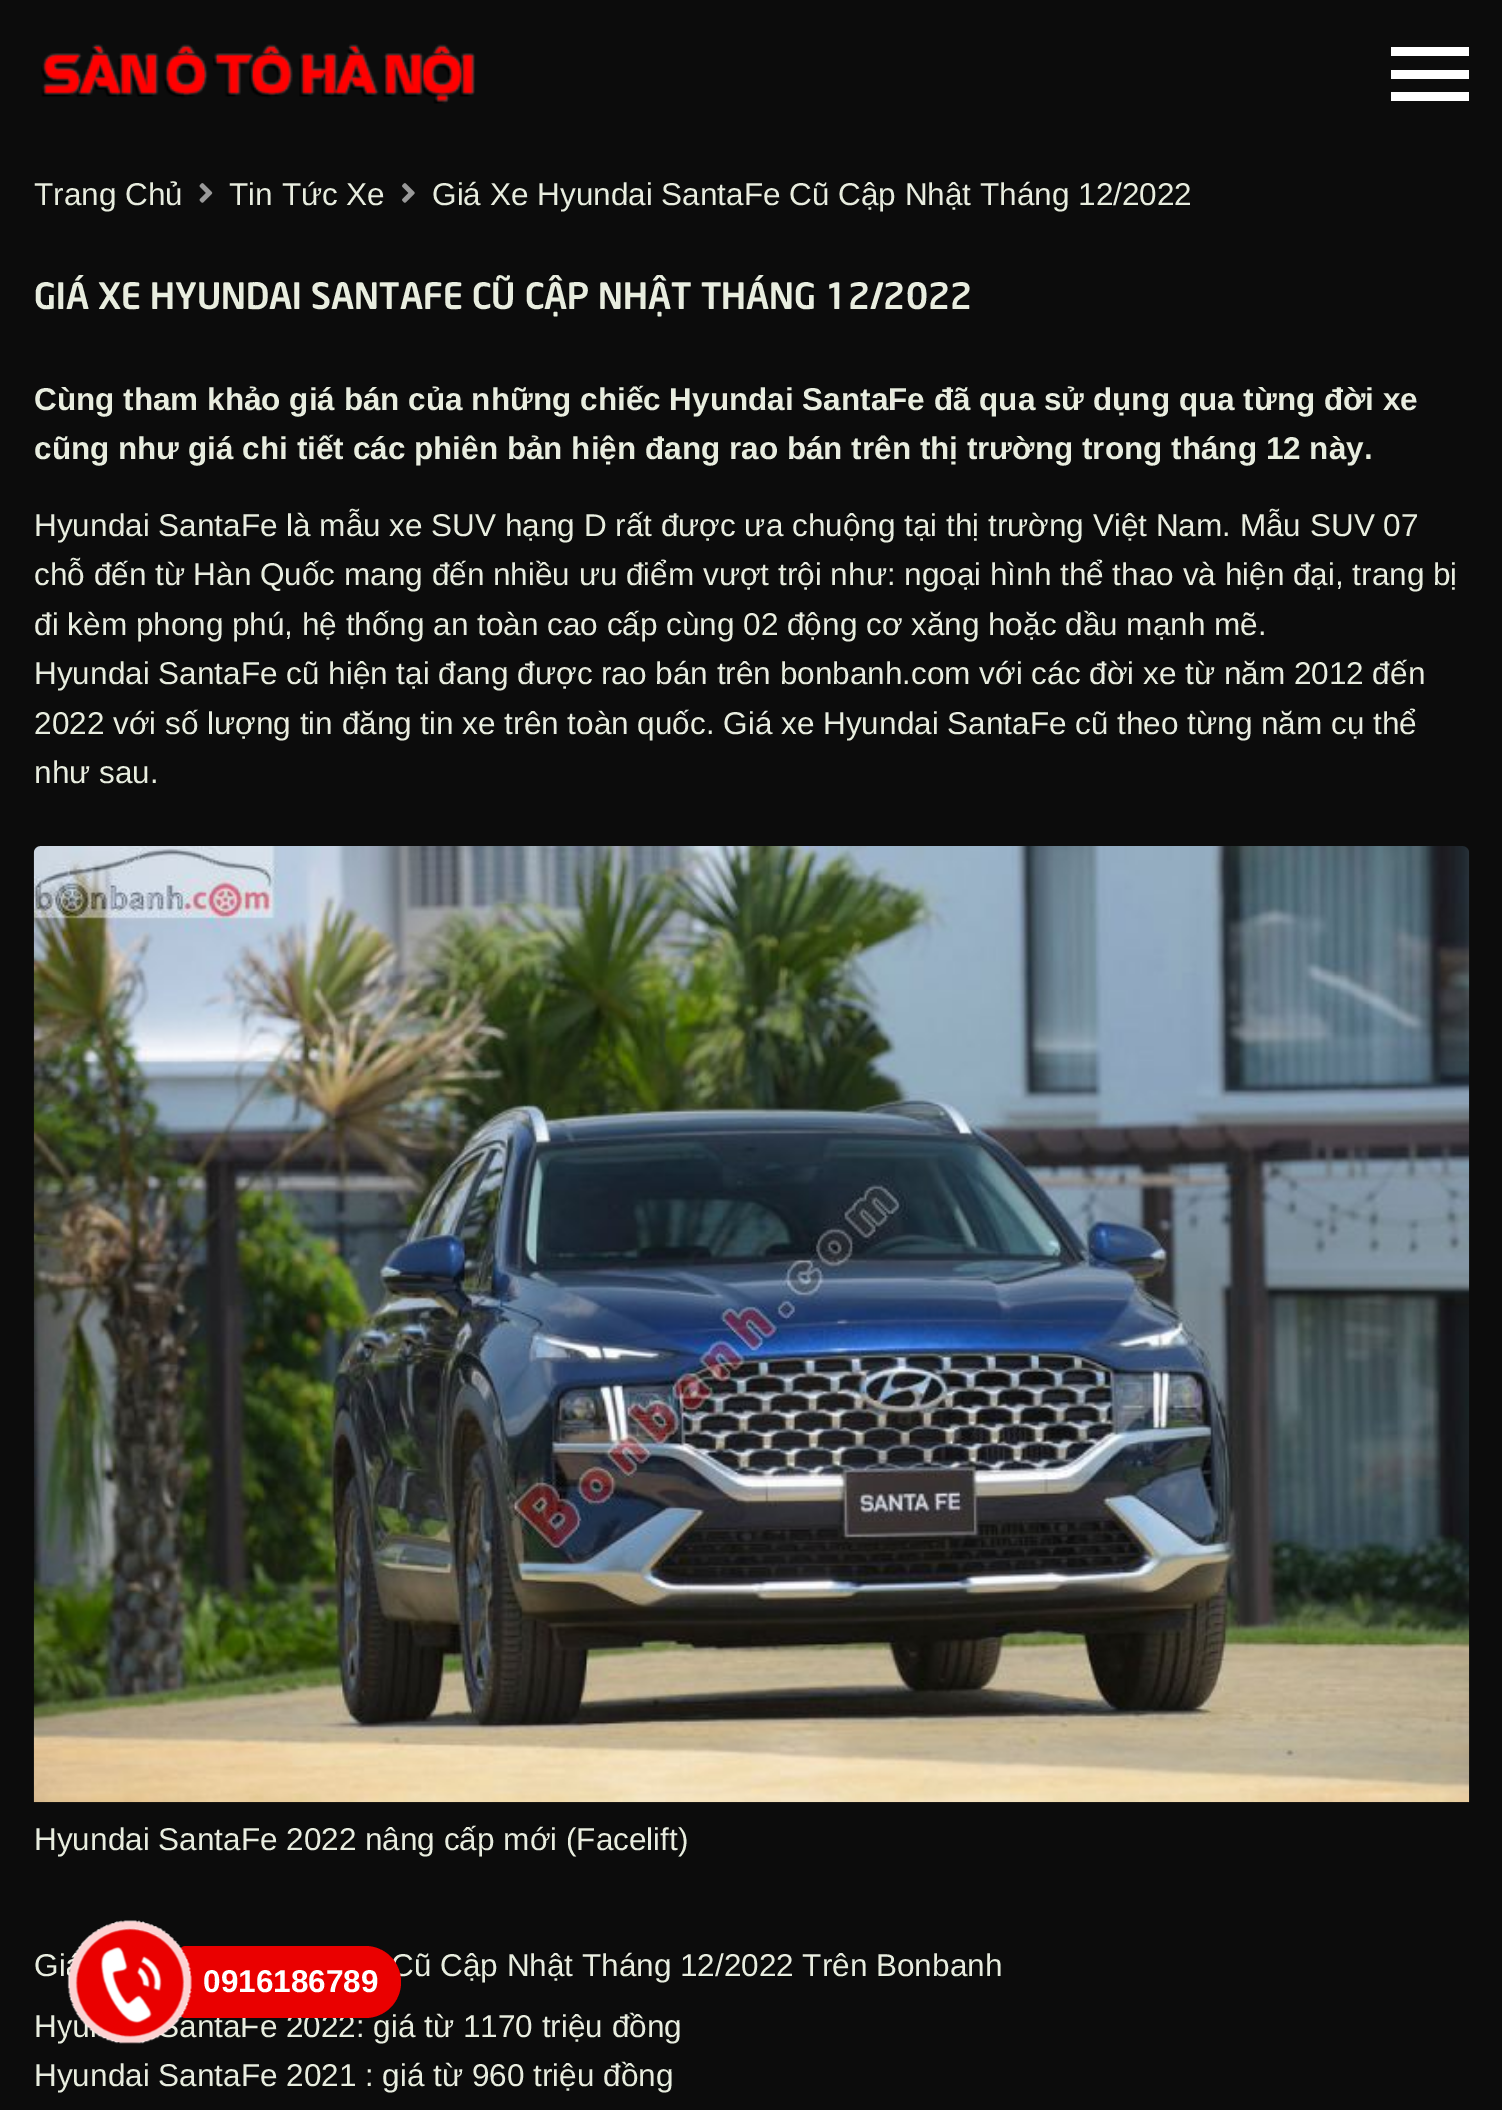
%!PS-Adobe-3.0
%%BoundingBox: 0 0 1502 2110
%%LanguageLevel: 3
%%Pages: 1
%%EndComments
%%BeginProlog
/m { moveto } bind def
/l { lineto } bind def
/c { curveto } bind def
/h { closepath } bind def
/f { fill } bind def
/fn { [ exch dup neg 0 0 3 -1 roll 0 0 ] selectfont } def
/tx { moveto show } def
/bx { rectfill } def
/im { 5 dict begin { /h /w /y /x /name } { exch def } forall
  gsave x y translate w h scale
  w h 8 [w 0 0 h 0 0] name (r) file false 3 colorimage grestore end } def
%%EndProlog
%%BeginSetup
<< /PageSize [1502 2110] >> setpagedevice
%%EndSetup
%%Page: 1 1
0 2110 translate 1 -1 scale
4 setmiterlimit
0.047 setgray
0 0 1502 2110 bx
(image0.raw) 41 44 434 60 im
1 setgray
1391 47 78 9 bx
1391 70 78 9 bx
1391 92 78 9 bx
/LiberationSans-Regular 31.5 fn
0.91 0.929 0.875 setrgbcolor
(Trang Chủ) 34 205 tx
(image1.raw) 199 183 14 20 im
(Tin Tức Xe) 229 205 tx
(image2.raw) 402 183 13 20 im
(Giá Xe Hyundai SantaFe Cũ Cập Nhật Tháng 12/2022) 432 205 tx
/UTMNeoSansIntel-Bold 36 fn
(GIÁ XE HYUNDAI SANTAFE CŨ CẬP NHẬT THÁNG 12/2022) 34 309 tx
/LiberationSans-Bold 31.5 fn
(Cùng tham khảo giá bán của những chiếc Hyundai SantaFe đã qua sử dụng qua từng đời xe) 34 410 tx
(cũng như giá chi tiết các phiên bản hiện đang rao bán trên thị trường trong tháng 12 này.) 34 459 tx
/LiberationSans-Regular 31.5 fn
(Hyundai SantaFe là mẫu xe SUV hạng D rất được ưa chuộng tại thị trường Việt Nam. Mẫu SUV 07) 34 536 tx
(chỗ đến từ Hàn Quốc mang đến nhiều ưu điểm vượt trội như: ngoại hình thể thao và hiện đại, trang bị) 34 585 tx
(đi kèm phong phú, hệ thống an toàn cao cấp cùng 02 động cơ xăng hoặc dầu mạnh mẽ.) 34 635 tx
(Hyundai SantaFe cũ hiện tại đang được rao bán trên bonbanh.com với các đời xe từ năm 2012 đến) 34 684 tx
(2022 với số lượng tin đăng tin xe trên toàn quốc. Giá xe Hyundai SantaFe cũ theo từng năm cụ thể) 34 734 tx
(như sau.) 34 783 tx
(image3.raw) 33 846 1437 957 im
(Hyundai SantaFe 2022 nâng cấp mới \(Facelift\)) 34 1850 tx
(Gi) 34 1976 tx
(Cũ Cập Nhật Tháng 12/2022 Trên Bonbanh) 391 1976 tx
(Hyu) 34 2037 tx
(SantaFe 2022: giá từ 1170 triệu đồng) 158 2037 tx
(Hyundai SantaFe 2021 : giá từ 960 triệu đồng) 34 2086 tx
0.918 0 0 setrgbcolor
185 1946 m 365 1946 l 385 1946 401 1962 401 1982 c 401 2002 385 2018 365 2018 c 185 2018 l 182 2018 180 2016 180 2013 c 180 1951 l 180 1948 182 1946 185 1946 c h f
(image4.raw) 67 1920 125 124 im
/LiberationSans-Bold 31.5 fn
1 setgray
(0916186789) 203 1992 tx
showpage
%%EOF
